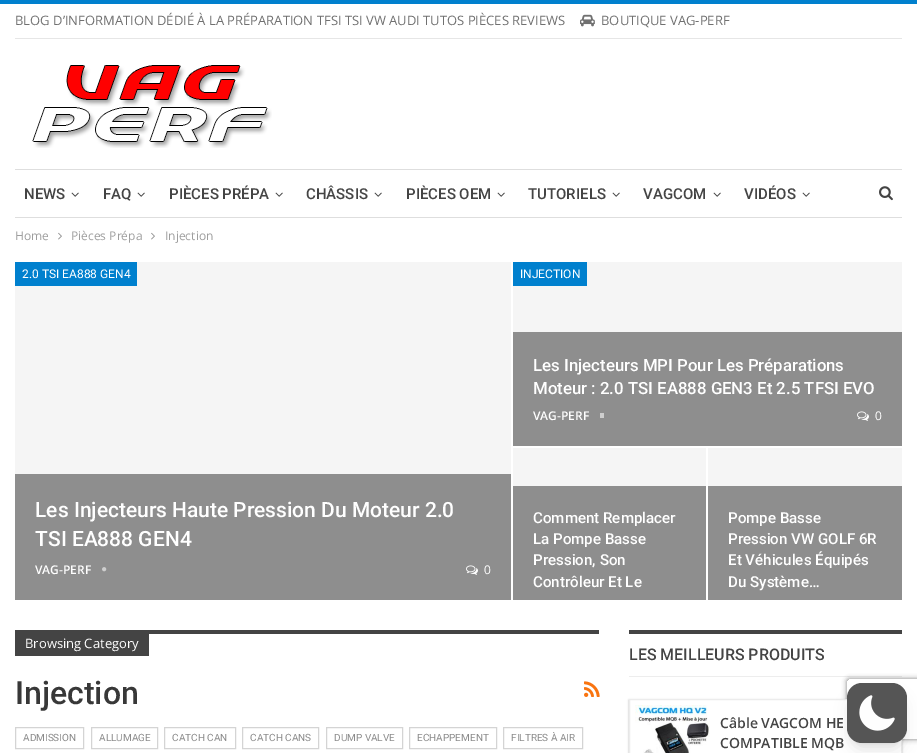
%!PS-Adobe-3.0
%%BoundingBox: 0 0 917 753
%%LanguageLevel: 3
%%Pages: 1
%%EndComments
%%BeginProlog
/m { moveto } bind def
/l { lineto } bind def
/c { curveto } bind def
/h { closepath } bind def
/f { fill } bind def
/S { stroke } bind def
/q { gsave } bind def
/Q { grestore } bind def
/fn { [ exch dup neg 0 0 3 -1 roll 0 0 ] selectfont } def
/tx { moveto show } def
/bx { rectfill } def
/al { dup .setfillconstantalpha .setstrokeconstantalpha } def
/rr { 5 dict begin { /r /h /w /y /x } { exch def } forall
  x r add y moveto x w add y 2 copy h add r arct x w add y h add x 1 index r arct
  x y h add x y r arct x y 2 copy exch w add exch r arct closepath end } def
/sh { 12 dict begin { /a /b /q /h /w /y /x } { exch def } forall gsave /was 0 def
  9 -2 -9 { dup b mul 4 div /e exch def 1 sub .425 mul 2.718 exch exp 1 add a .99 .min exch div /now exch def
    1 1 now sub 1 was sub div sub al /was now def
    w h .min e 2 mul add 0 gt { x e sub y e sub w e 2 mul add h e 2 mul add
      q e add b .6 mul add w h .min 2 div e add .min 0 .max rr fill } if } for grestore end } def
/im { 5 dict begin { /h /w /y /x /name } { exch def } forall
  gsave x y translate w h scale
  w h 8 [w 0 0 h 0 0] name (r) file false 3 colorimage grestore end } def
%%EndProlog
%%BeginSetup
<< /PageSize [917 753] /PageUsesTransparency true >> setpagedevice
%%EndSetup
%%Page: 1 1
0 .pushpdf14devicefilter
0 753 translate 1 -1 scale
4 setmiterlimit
1 setgray
0 0 917 753 bx
0 0.502 0.808 setrgbcolor
0 0 917 4 bx
0.902 setgray
15 38 887 1 bx
/OpenSans-Regular 13 fn
0.439 setgray
(BLOG D’INFORMATION DÉDIÉ À LA PRÉPARATION TFSI TSI VW AUDI TUTOS PIÈCES REVIEWS) 15 25 tx
(image0.raw) 580 14 15 13 im
(BOUTIQUE VAG-PERF) 601 25 tx
(image1.raw) 32 65 240 83 im
0.871 setgray
15 169 887 1 bx
15 217 887 1 bx
/Roboto-Medium 15 fn
0.267 setgray
(NEWS) 24 199 tx
(image2.raw) 71 192 8 5 im
(FAQ) 103 199 tx
(image2.raw) 137 192 8 5 im
(PIÈCES PRÉPA) 169 199 tx
(image2.raw) 275 192 8 5 im
(CHÂSSIS) 306 199 tx
(image2.raw) 374 192 8 5 im
(PIÈCES OEM) 406 199 tx
(image2.raw) 497 192 8 5 im
(TUTORIELS) 528 199 tx
(image2.raw) 612 192 8 5 im
(VAGCOM) 643 199 tx
(image2.raw) 713 192 8 5 im
(VIDÉOS) 744 199 tx
(image2.raw) 802 192 8 5 im
(image3.raw) 879 186 14 15 im
/OpenSans-Regular 12 fn
0.62 setgray
(Home) 15 240 tx
(image4.raw) 58 232 4 8 im
(Pièces Prépa) 71 240 tx
(image4.raw) 151 232 4 8 im
(Injection) 165 240 tx
0.961 setgray
15 262 496 212 bx
0 0.502 0.808 setrgbcolor
15 262 122 24 bx
/Roboto-Regular 12 fn
1 setgray
(2.0 TSI EA888 GEN4) 22 278 tx
0.557 setgray
15 474 496 126 bx
/Roboto-Medium 21 fn
1 setgray
(Les Injecteurs Haute Pression Du Moteur 2.0) 35 517 tx
(TSI EA888 GEN4) 35 546 tx
/OpenSans-SemiBold 12 fn
(VAG-PERF) 35 574 tx
(image5.raw) 102 567 5 5 im
(image6.raw) 466 565 12 10 im
/OpenSans-Regular 12 fn
(0) 484 574 tx
0.961 setgray
513 262 389 70 bx
0 0.502 0.808 setrgbcolor
513 262 74 24 bx
/Roboto-Regular 12 fn
1 setgray
(INJECTION) 520 278 tx
0.557 setgray
513 332 389 114 bx
/Roboto-Medium 16.8 fn
1 setgray
(Les Injecteurs MPI Pour Les Préparations) 533 371 tx
(Moteur : 2.0 TSI EA888 GEN3 Et 2.5 TFSI EVO) 533 394 tx
/OpenSans-SemiBold 12 fn
(VAG-PERF) 533 420 tx
0.808 setgray
600 413 4 5 bx
(image6.raw) 857 411 12 10 im
/OpenSans-Regular 12 fn
1 setgray
(0) 875 420 tx
0.961 setgray
513 448 193 38 bx
0.557 setgray
513 486 193 114 bx
/Roboto-Medium 15.1 fn
1 setgray
(Comment Remplacer) 533 523 tx
(La Pompe Basse) 533 544 tx
(Pression, Son) 533 565 tx
(Contrôleur Et Le) 533 587 tx
0.961 setgray
708 448 194 38 bx
0.557 setgray
708 486 194 114 bx
1 setgray
(Pompe Basse) 728 523 tx
(Pression VW GOLF 6R) 728 544 tx
(Et Véhicules Équipés) 728 565 tx
(Du Système…) 728 587 tx
0.267 setgray
149 630 450 4 bx
15 630 134 26 bx
/OpenSans-Regular 13 fn
1 setgray
(Browsing Category) 25 648 tx
/Roboto-Medium 32 fn
0.22 setgray
(Injection) 15 704 tx
(image7.raw) 584 681 16 16 im
0.831 setgray
15.5 727.5 68 21 rectstroke
/Roboto-Regular 10 fn
0.545 setgray
(ADMISSION) 23 741 tx
0.831 setgray
91.5 727.5 66 21 rectstroke
0.545 setgray
(ALLUMAGE) 99 741 tx
0.831 setgray
164.5 727.5 71 21 rectstroke
0.545 setgray
(CATCH CAN) 172 741 tx
0.831 setgray
242.5 727.5 76 21 rectstroke
0.545 setgray
(CATCH CANS) 250 741 tx
0.831 setgray
326.5 727.5 76 21 rectstroke
0.545 setgray
(DUMP VALVE) 334 741 tx
0.831 setgray
409.5 727.5 87 21 rectstroke
0.545 setgray
(ECHAPPEMENT) 417 741 tx
0.831 setgray
503.5 727.5 79 21 rectstroke
0.545 setgray
(FILTRES À AIR) 511 741 tx
0.267 setgray
629 630 273 4 bx
/Roboto-Medium 16 fn
(LES MEILLEURS PRODUITS) 629 660 tx
q
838 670 m 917 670 l 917 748 l 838 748 l h 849 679 m 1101 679 l 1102 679 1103 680 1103 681 c 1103 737 l 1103 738 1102 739 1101 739 c 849 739 l 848 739 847 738 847 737 c 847 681 l 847 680 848 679 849 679 c h eoclip newpath
0.502 setgray
847 679 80 60 2 2.5 1 sh
Q
0.07 al
0 setgray
629 676 273 1 bx
1 al
629 700 273 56 0 1 0.3 sh
1 setgray
629.5 699.5 m 901.5 699.5 l 901.5 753.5 l 629.5 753.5 l h q f Q
0.925 setgray
S
(image8.raw) 635 705 75 48 im
/OpenSans-SemiBold 14 fn
0.267 setgray
(Câble VAGCOM HE) 720 728 tx
(COMPATIBLE MQB) 720 748 tx
0 setgray
851 691 52 52 11 3 0.1 sh
850 696 54 54 12 7.5 0.1 sh
0.333 setgray
847 683 60 60 15 rr f
(image9.raw) 859 695 36 36 im
.poppdf14devicefilter showpage
%%EOF
